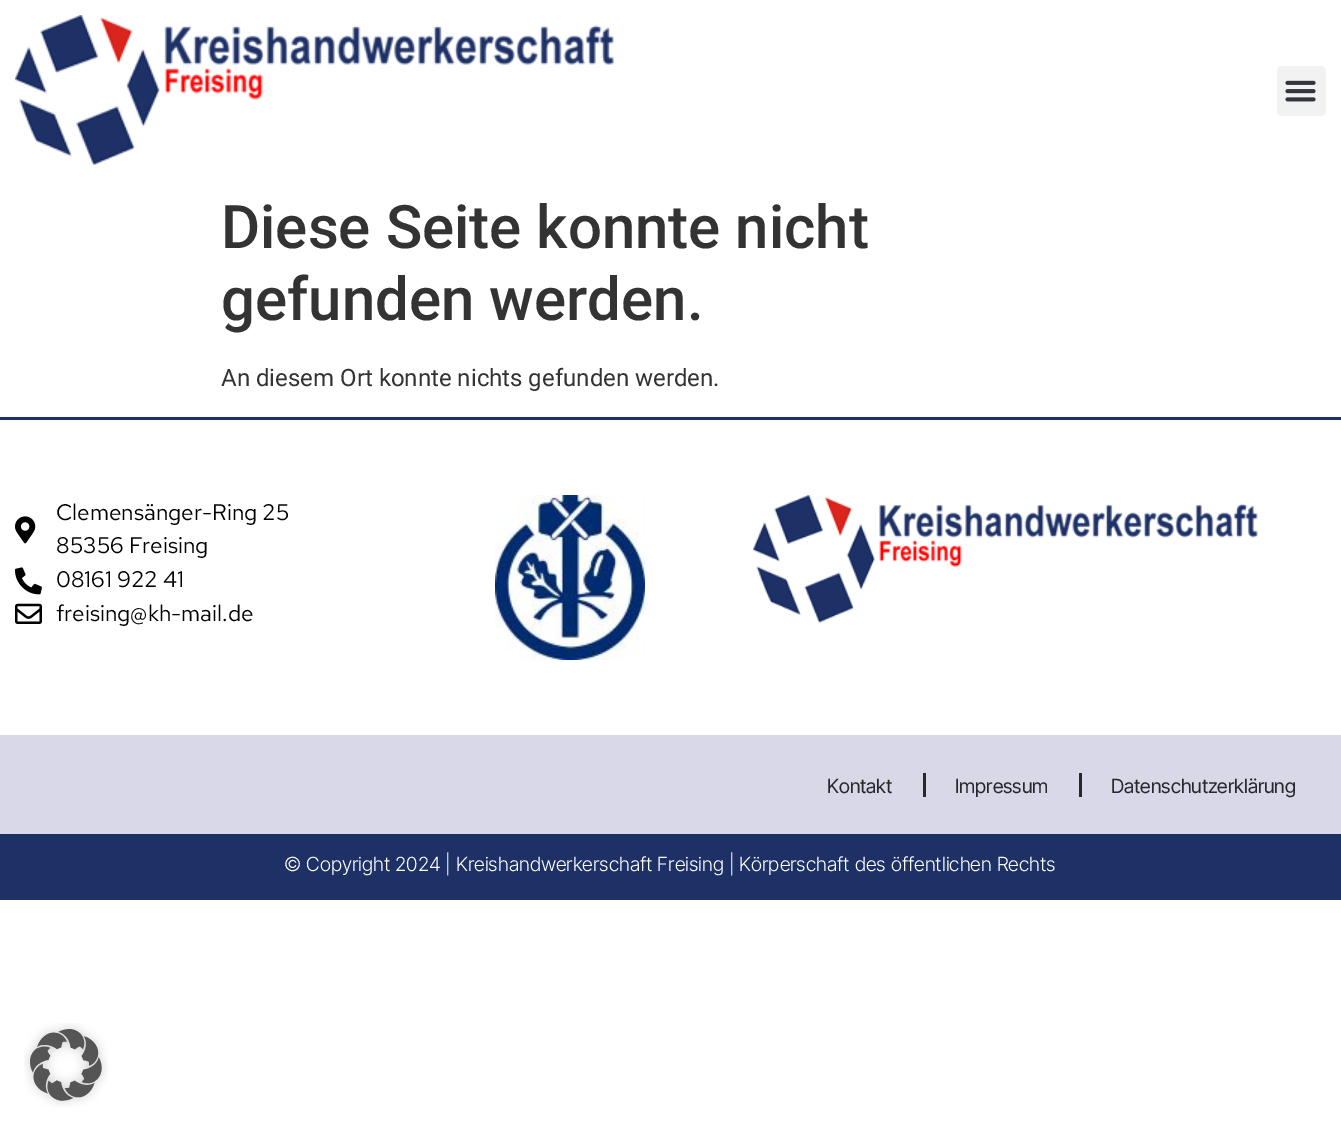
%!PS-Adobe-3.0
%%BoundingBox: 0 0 1341 1130
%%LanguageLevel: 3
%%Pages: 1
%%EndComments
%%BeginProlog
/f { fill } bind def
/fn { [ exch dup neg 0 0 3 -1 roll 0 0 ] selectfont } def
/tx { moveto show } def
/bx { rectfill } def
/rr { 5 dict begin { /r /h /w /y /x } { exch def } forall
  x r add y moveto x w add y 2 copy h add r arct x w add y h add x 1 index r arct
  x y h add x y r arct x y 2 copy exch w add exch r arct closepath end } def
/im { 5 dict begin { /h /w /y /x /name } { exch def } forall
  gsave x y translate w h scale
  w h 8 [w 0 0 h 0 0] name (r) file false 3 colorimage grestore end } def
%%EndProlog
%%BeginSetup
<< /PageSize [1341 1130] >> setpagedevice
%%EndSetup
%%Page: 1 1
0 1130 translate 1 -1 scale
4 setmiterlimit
1 setgray
0 0 1341 1130 bx
(image0.raw) 15 15 599 150 im
0.949 setgray
1277 66 49 50 5 rr f
(image1.raw) 1285 80 31 22 im
/Roboto-Medium 60 fn
0.2 setgray
(Diese Seite konnte nicht) 221 248 tx
(gefunden werden.) 221 320 tx
/Roboto-Regular 24 fn
(An diesem Ort konnte nichts gefunden werden.) 221 386 tx
0.118 0.192 0.4 setrgbcolor
0 417 1341 3 bx
(image2.raw) 15 516 21 28 im
/RedHatText-Regular 22.5 fn
0 setgray
(Clemensänger-Ring 25) 56 520 tx
(85356 Freising) 56 553 tx
(image3.raw) 15 567 27 28 im
(08161 922 41) 56 587 tx
(image4.raw) 15 603 27 21 im
(freising@kh-mail.de) 56 621 tx
(image5.raw) 495 495 150 165 im
(image6.raw) 753 495 505 128 im
0.851 0.847 0.91 setrgbcolor
0 735 1341 99 bx
/InterTight-Regular 19.5 fn
0.157 0.153 0.161 setrgbcolor
(Kontakt) 827 793 tx
923 773 3 24 bx
(Impressum) 955 793 tx
1079 773 3 24 bx
(Datenschutzerklärung) 1111 793 tx
0.118 0.192 0.4 setrgbcolor
0 834 1341 66 bx
/InterTight-Light 19.5 fn
1 setgray
(© Copyright 2024 | Kreishandwerkerschaft Freising | Körperschaft des öffentlichen Rechts) 284 871 tx
(image7.raw) 24 1023 84 84 im
showpage
%%EOF
